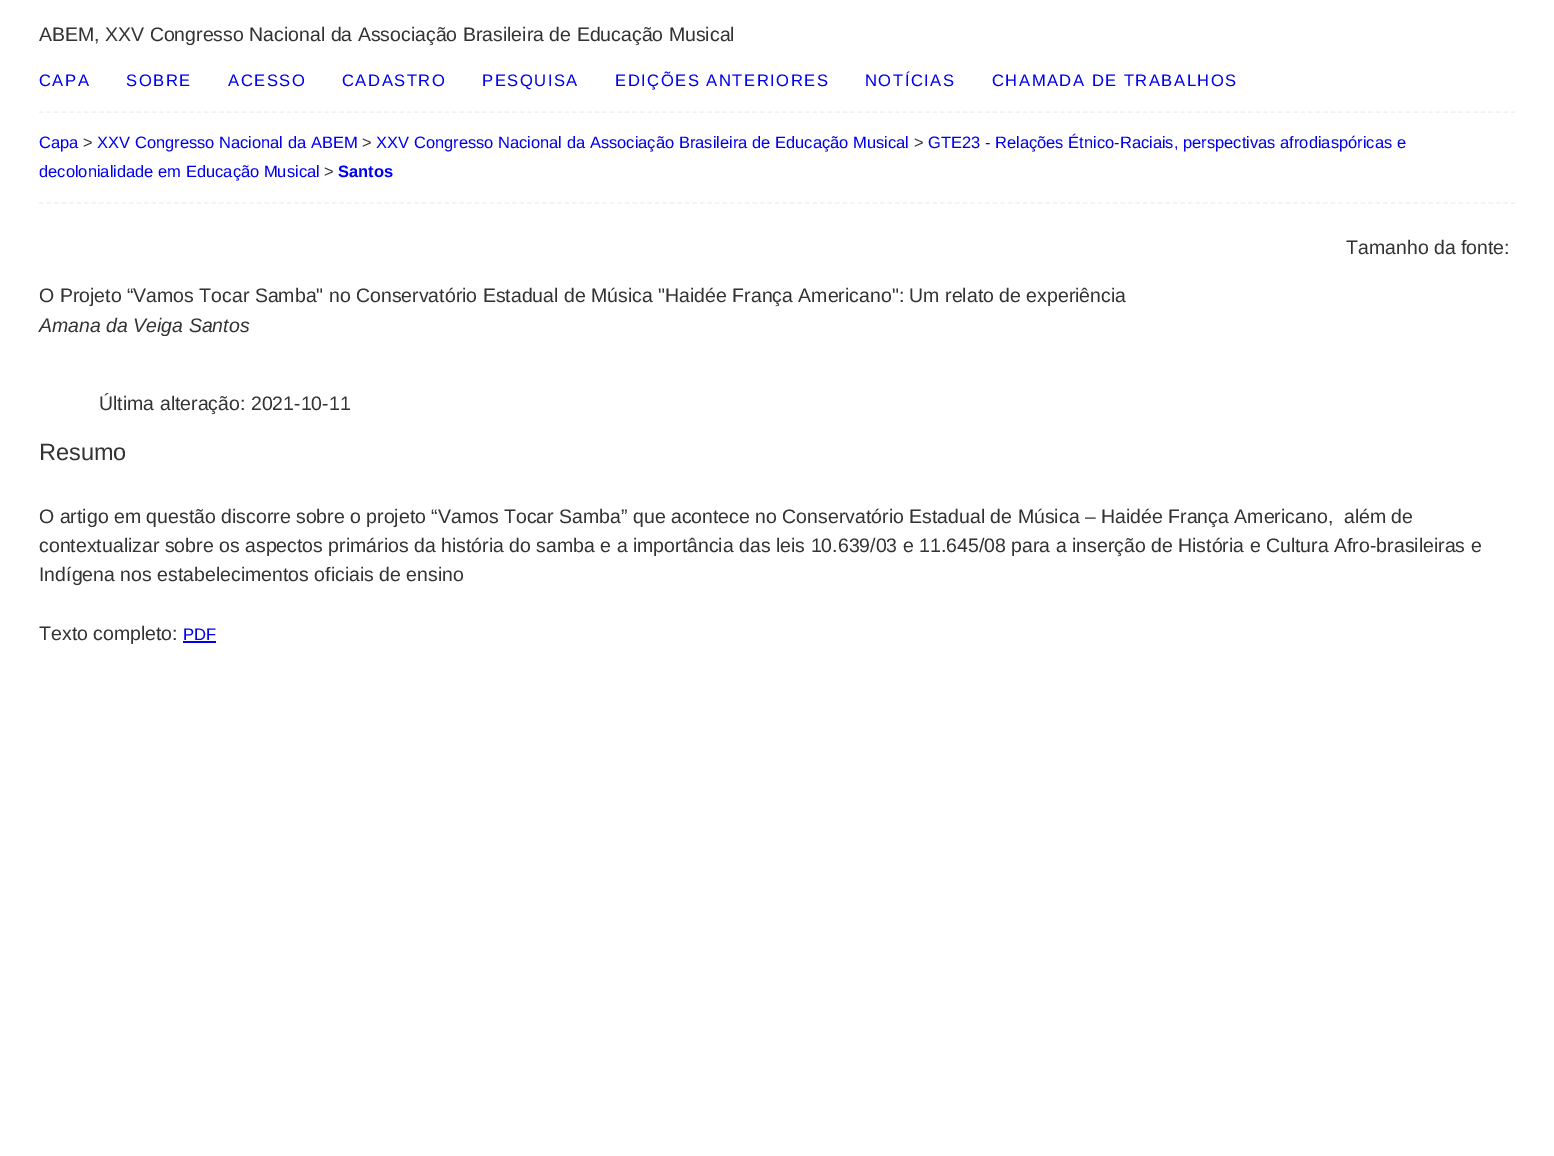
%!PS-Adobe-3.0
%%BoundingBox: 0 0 1554 1156
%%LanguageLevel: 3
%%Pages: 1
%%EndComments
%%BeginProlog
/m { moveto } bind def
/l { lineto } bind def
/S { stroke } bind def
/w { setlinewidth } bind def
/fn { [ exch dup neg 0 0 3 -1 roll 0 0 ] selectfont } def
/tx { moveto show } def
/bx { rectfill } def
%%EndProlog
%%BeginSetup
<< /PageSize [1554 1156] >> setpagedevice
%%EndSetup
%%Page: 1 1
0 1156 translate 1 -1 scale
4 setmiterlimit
1 setgray
0 0 1554 1156 bx
/LiberationSans-Regular 19.5 fn
0.2 setgray
(ABEM, XXV Congresso Nacional da Associação Brasileira de Educação Musical) 39 41 tx
0.949 setgray
1.5 w
[4.5 3.01] 0 setdash
39 112 m 1515 112 l S
/LiberationSans-Regular 16.6 fn
0 0 0.933 setrgbcolor
39 86 m 1.5 0 (CAPA) ashow
126 86 m 1.5 0 (SOBRE) ashow
228 86 m 1.5 0 (ACESSO) ashow
342 86 m 1.5 0 (CADASTRO) ashow
482 86 m 1.5 0 (PESQUISA) ashow
615 86 m 1.5 0 (EDIÇÕES ANTERIORES) ashow
865 86 m 1.5 0 (NOTÍCIAS) ashow
992 86 m 1.5 0 (CHAMADA DE TRABALHOS) ashow
0.949 setgray
39 203 m 1515 203 l S
/LiberationSans-Regular 16.5 fn
0 0 0.933 setrgbcolor
(Capa) 39 148 tx
0.2 setgray
(>) 83 148 tx
0 0 0.933 setrgbcolor
(XXV Congresso Nacional da ABEM) 97 148 tx
0.2 setgray
(>) 362 148 tx
0 0 0.933 setrgbcolor
(XXV Congresso Nacional da Associação Brasileira de Educação Musical) 376 148 tx
0.2 setgray
(>) 914 148 tx
0 0 0.933 setrgbcolor
(GTE23 - Relações Étnico-Raciais, perspectivas afrodiaspóricas e) 928 148 tx
(decolonialidade em Educação Musical) 39 177 tx
0.2 setgray
(>) 324 177 tx
/LiberationSans-Bold 16.5 fn
0 0 0.933 setrgbcolor
(Santos) 338 177 tx
/LiberationSans-Regular 19.5 fn
0.2 setgray
(Tamanho da fonte:) 1346 254 tx
(O Projeto “Vamos Tocar Samba" no Conservatório Estadual de Música "Haidée França Americano": Um relato de experiência) 39 302 tx
/LiberationSans-Italic 19.5 fn
(Amana da Veiga Santos) 39 332 tx
/LiberationSans-Regular 19.5 fn
(Última alteração: 2021-10-11) 99 410 tx
/LiberationSans-Regular 23.5 fn
(Resumo) 39 460 tx
/LiberationSans-Regular 19.5 fn
(O artigo em questão discorre sobre o projeto “Vamos Tocar Samba” que acontece no Conservatório Estadual de Música – Haidée França Americano,  além de) 39 523 tx
(contextualizar sobre os aspectos primários da história do samba e a importância das leis 10.639/03 e 11.645/08 para a inserção de História e Cultura Afro-brasileiras e) 39 552 tx
(Indígena nos estabelecimentos oficiais de ensino) 39 581 tx
(Texto completo:) 39 640 tx
/LiberationSans-Regular 16.6 fn
0 0 0.933 setrgbcolor
(PDF) 183 640 tx
183 641 33 2 bx
showpage
%%EOF
